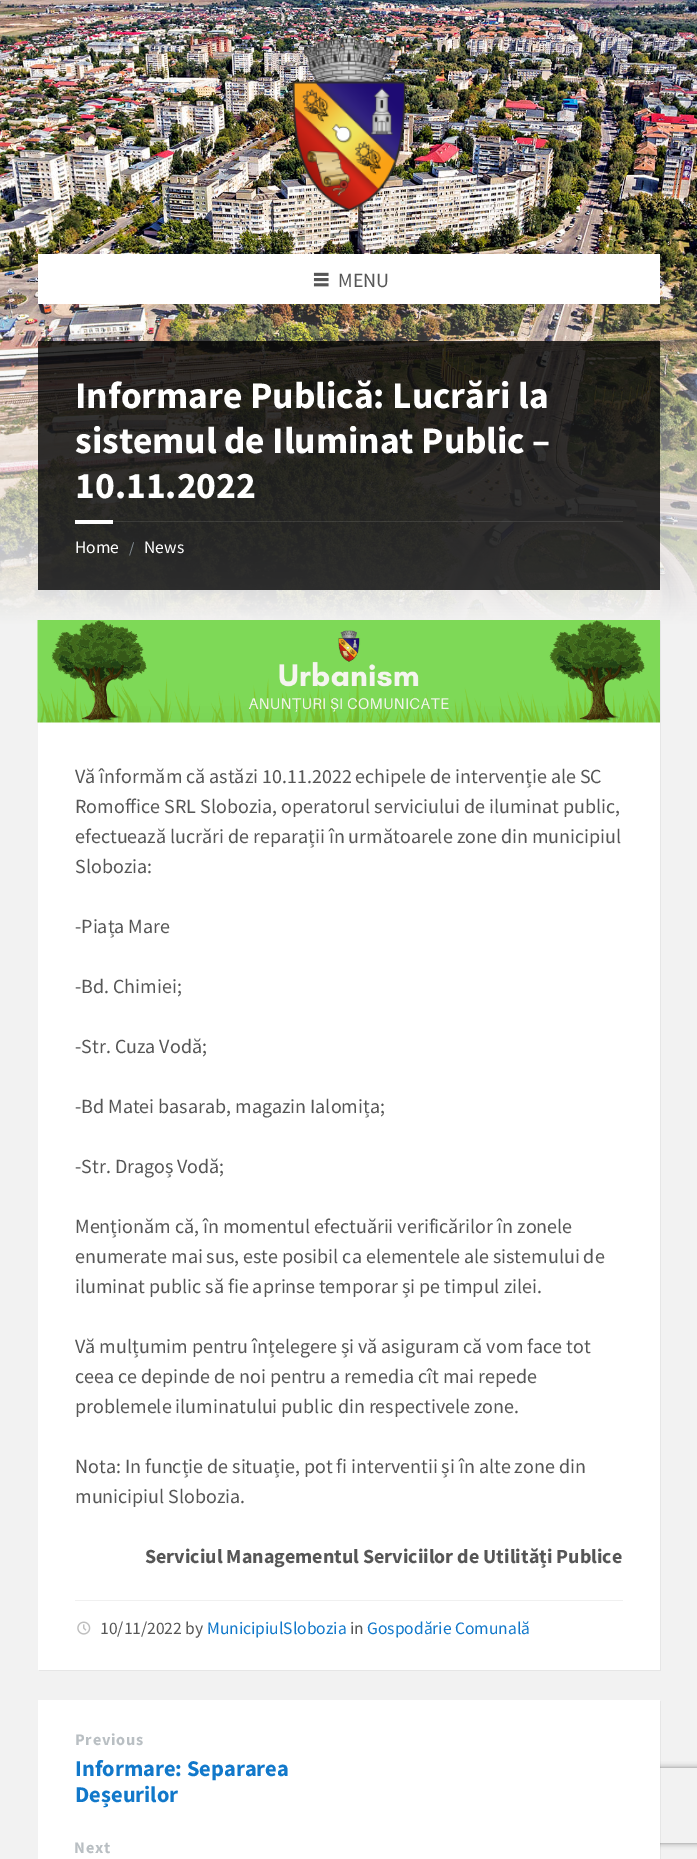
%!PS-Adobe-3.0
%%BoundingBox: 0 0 697 1859
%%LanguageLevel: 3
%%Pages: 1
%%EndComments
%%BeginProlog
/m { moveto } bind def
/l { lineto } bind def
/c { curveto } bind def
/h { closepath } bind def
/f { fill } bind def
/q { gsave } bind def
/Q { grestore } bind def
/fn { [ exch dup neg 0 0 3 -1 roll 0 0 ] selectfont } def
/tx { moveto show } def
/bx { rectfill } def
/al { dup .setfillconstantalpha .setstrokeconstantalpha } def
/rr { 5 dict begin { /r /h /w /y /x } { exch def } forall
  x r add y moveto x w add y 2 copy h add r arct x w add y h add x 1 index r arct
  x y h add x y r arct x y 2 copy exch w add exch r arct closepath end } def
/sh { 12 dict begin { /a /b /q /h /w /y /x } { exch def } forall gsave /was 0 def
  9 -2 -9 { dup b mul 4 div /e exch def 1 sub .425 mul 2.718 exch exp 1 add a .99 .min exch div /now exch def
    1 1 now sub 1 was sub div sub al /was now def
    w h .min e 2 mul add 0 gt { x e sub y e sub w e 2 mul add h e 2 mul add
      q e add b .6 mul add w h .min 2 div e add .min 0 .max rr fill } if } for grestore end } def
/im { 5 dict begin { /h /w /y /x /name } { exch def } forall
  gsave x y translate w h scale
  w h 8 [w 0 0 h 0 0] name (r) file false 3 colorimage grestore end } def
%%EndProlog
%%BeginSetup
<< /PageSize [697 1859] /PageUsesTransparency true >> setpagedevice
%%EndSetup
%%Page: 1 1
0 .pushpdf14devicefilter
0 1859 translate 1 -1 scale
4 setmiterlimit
0.949 setgray
0 0 697 1859 bx
(image0.raw) 0 0 697 625 im
(image1.raw) 292 37 115 175 im
1 setgray
38 254 622 50 bx
(image2.raw) 313 272 16 15 im
/SourceSansPro-Regular 20 fn
0.337 setgray
(MENU) 338 287 tx
0.8 al
0 setgray
38 341 622 249 bx
/SourceSansPro-Bold 37.5 fn
1 al
1 setgray
(Informare Publică: Lucrări la) 75 408 tx
(sistemul de Iluminat Public –) 75 453 tx
(10.11.2022) 75 498 tx
0.1 al
113 521 510 1 bx
1 al
75 520 38 4 bx
/SourceSansPro-Regular 17.5 fn
(Home) 75 553 tx
/SourceSansPro-Regular 15 fn
0.541 0.58 0.608 setrgbcolor
(/) 129 553 tx
/SourceSansPro-Regular 17.5 fn
1 setgray
(News) 144 553 tx
0.902 setgray
39 1670 m 39 1671 l 661 1671 l 661 621 l 660 621 l 660 1670 l h f
1 setgray
38 722 622 948 bx
(image3.raw) 37 620 623 103 im
/SourceSansPro-Regular 20 fn
0.337 setgray
(Vă înformăm că astăzi 10.11.2022 echipele de intervenție ale SC) 75 783 tx
(Romoffice SRL Slobozia, operatorul serviciului de iluminat public,) 75 813 tx
(efectuează lucrări de reparații în următoarele zone din municipiul) 75 843 tx
(Slobozia:) 75 873 tx
(-Piața Mare) 75 933 tx
(-Bd. Chimiei;) 75 993 tx
(-Str. Cuza Vodă;) 75 1053 tx
(-Bd Matei basarab, magazin Ialomița;) 75 1113 tx
(-Str. Dragoș Vodă;) 75 1173 tx
(Menționăm că, în momentul efectuării verificărilor în zonele) 75 1233 tx
(enumerate mai sus, este posibil ca elementele ale sistemului de) 75 1263 tx
(iluminat public să fie aprinse temporar și pe timpul zilei.) 75 1293 tx
(Vă mulțumim pentru înțelegere și vă asiguram că vom face tot) 75 1353 tx
(ceea ce depinde de noi pentru a remedia cît mai repede) 75 1383 tx
(problemele iluminatului public din respectivele zone.) 75 1413 tx
(Nota: In funcție de situație, pot fi interventii și în alte zone din) 75 1473 tx
(municipiul Slobozia.) 75 1503 tx
/SourceSansPro-Bold 20 fn
(Serviciul Managementul Serviciilor de Utilități Publice) 145 1563 tx
0.941 setgray
75 1600 548 1 bx
(image4.raw) 77 1621 14 14 im
/SourceSansPro-Regular 17.5 fn
0.337 setgray
(10/11/2022 by) 100 1634 tx
0.067 0.471 0.792 setrgbcolor
(MunicipiulSlobozia) 207 1634 tx
0.337 setgray
(in) 350 1634 tx
0.067 0.471 0.792 setrgbcolor
(Gospodărie Comunală) 367 1634 tx
q
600 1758 m 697 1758 l 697 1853 l 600 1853 l h 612.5 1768 m 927.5 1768 l 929 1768 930 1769 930 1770.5 c 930 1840.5 l 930 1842 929 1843 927.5 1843 c 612.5 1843 l 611 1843 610 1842 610 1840.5 c 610 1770.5 l 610 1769 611 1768 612.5 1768 c h eoclip newpath
0.502 setgray
610 1768 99 75 2.5 3 1 sh
Q
0.05 al
0 setgray
39 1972 m 39 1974 l 661 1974 l 661 1701 l 660 1701 l 660 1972 l h f
1 al
1 setgray
38 1700 622 159 bx
/SourceSansPro-Bold 16.25 fn
0.725 0.749 0.765 setrgbcolor
75 1745 m 0.75 0 (Previous) ashow
/SourceSansPro-Bold 22.5 fn
0.067 0.471 0.792 setrgbcolor
(Informare: Separarea) 75 1776 tx
(Deșeurilor) 75 1802 tx
/SourceSansPro-Bold 16.25 fn
0.725 0.749 0.765 setrgbcolor
74 1853 m 0.75 0 (Next) ashow
.poppdf14devicefilter showpage
%%EOF
